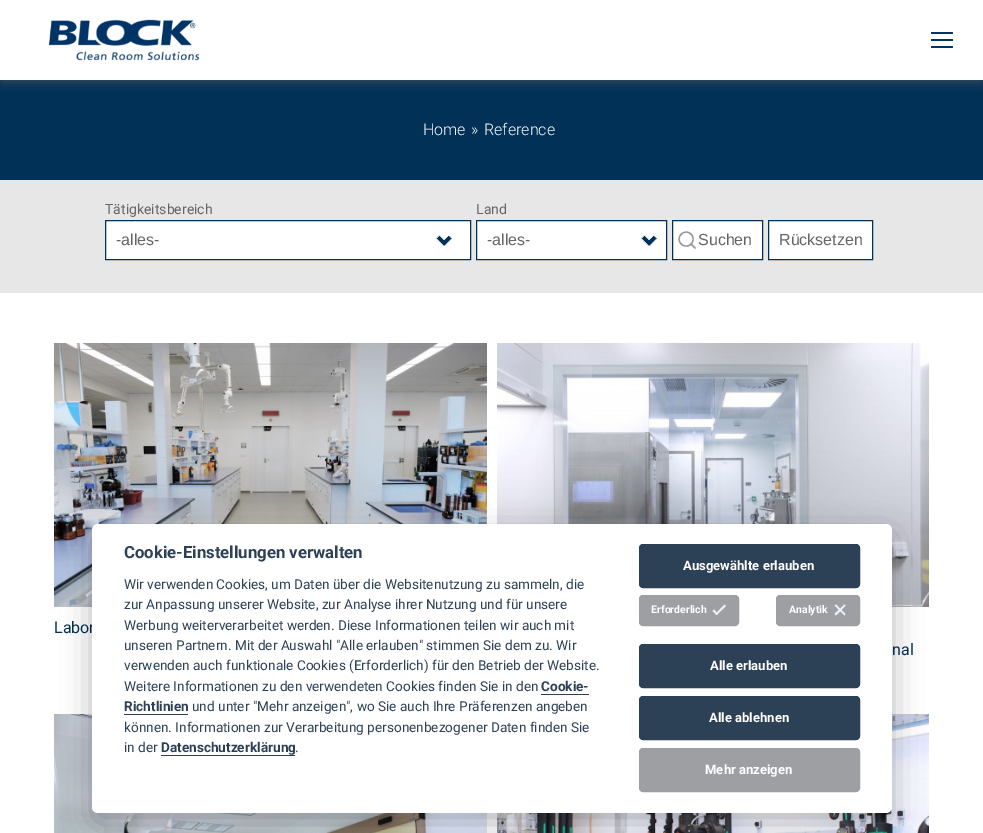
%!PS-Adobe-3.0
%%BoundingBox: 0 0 983 833
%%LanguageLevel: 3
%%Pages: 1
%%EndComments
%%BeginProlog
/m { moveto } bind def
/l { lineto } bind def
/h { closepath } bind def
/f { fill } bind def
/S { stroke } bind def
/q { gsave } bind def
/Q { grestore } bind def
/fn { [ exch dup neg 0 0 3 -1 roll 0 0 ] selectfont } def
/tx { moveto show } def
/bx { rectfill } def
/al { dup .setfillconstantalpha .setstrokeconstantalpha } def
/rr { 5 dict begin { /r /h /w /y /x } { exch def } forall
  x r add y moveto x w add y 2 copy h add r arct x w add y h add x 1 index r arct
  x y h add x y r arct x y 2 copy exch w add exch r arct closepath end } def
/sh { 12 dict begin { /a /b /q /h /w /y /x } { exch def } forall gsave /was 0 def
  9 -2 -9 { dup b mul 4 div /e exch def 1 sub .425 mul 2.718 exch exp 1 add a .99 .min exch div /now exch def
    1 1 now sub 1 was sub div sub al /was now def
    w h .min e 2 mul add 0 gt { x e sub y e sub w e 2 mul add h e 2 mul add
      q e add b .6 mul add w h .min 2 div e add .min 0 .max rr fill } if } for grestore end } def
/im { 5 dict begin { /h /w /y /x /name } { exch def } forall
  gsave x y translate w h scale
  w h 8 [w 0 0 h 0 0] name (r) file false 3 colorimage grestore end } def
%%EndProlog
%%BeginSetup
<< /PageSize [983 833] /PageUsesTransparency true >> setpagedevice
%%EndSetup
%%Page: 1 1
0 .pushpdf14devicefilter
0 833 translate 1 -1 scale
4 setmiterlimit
1 setgray
0 0 983 833 bx
0.004 0.192 0.341 setrgbcolor
0 80 983 100 bx
q
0 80 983 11 rectclip
0.396 setgray
2 3 979 76 0 6 1 sh
Q
(image0.raw) 49 19 150 42 im
0 0.2 0.4 setrgbcolor
931 39 22 2 bx
931 32 22 2 1 rr f
931 46 22 2 1 rr f
/Roboto-Light 16 fn
1 setgray
(Home) 423 135 tx
(») 471 135 tx
(Reference) 484 135 tx
0.906 setgray
0 180 983 113 bx
/Roboto-Regular 14 fn
0.396 setgray
(Tätigkeitsbereich) 105 214 tx
1 setgray
106 221 364 38 bx
(image1.raw) 436 235 16 11 im
0.004 0.192 0.341 setrgbcolor
105.5 220.5 365 39 rectstroke
/LiberationSans-Regular 16 fn
0.396 setgray
(-alles-) 116 245 tx
/Roboto-Regular 14 fn
(Land) 476 214 tx
1 setgray
477 221 189 38 bx
(image1.raw) 641 235 16 11 im
0.004 0.192 0.341 setrgbcolor
476.5 220.5 190 39 rectstroke
/LiberationSans-Regular 16 fn
0.396 setgray
(-alles-) 487 245 tx
1 setgray
673 221 89 38 bx
(image2.raw) 678 231 18 18 im
0.004 0.192 0.341 setrgbcolor
672.5 220.5 90 39 rectstroke
0.396 setgray
(Suchen) 698 245 tx
1 setgray
768.5 220.5 m 872.5 220.5 l 872.5 259.5 l 768.5 259.5 l h q f Q
0.004 0.192 0.341 setrgbcolor
S
0.396 setgray
(Rücksetzen) 779 245 tx
(image3.raw) 54 343 433 264 im
/Roboto-Regular 16 fn
0.004 0.192 0.341 setrgbcolor
(Labor) 54 633 tx
(image4.raw) 497 343 432 264 im
(nal) 892 655 tx
(image5.raw) 54 714 433 119 im
(image6.raw) 497 714 432 119 im
0.008 0.008 0.012 setrgbcolor
92 534 800 289 6 15 0.28 sh
1 setgray
92 524 800 289 6 rr f
/Roboto-Bold 16.75 fn
0.176 0.255 0.337 setrgbcolor
(Cookie-Einstellungen verwalten) 124 558 tx
/Roboto-Regular 13.6 fn
(Wir verwenden Cookies, um Daten über die Websitenutzung zu sammeln, die) 124 589 tx
(zur Anpassung unserer Website, zur Analyse ihrer Nutzung und für unsere) 124 609 tx
(Werbung weiterverarbeitet werden. Diese Informationen teilen wir auch mit) 124 630 tx
(unseren Partnern. Mit der Auswahl "Alle erlauben" stimmen Sie dem zu. Wir) 124 650 tx
(verwenden auch funktionale Cookies \(Erforderlich\) für den Betrieb der Website.) 124 670 tx
(Weitere Informationen zu den verwendeten Cookies finden Sie in den) 124 691 tx
/Roboto-Bold 13.6 fn
(Cookie-) 541 691 tx
541 694 48 1 bx
(Richtlinien) 124 711 tx
124 714 64 1 bx
/Roboto-Regular 13.6 fn
(und unter "Mehr anzeigen", wo Sie auch Ihre Präferenzen angeben) 192 711 tx
(können. Informationen zur Verarbeitung personenbezogener Daten finden Sie) 124 732 tx
(in der) 124 752 tx
/Roboto-Bold 13.6 fn
(Datenschutzerklärung) 161 752 tx
161 755 134 1 bx
/Roboto-Regular 13.6 fn
(.) 295 752 tx
639.5 544.5 220 43 3.5 rr q f Q
S
/Roboto-Bold 13.1 fn
1 setgray
(Ausgewählte erlauben) 683 570 tx
0.616 0.624 0.635 setrgbcolor
639.5 595.5 99 30 3.5 rr q f Q
S
/Roboto-Bold 10.5 fn
1 setgray
(Erforderlich) 651 613 tx
0.925 0.949 0.98 setrgbcolor
724.5 604.5 m 726 606 l 716.5 615 l 715.5 614 l h f
714 609.5 m 718 614 l 716.5 615 l 712.5 611 l h f
0.616 0.624 0.635 setrgbcolor
776.5 595.5 83 30 3.5 rr q f Q
S
1 setgray
(Analytik) 789 613 tx
0.925 0.949 0.98 setrgbcolor
844.5 604.5 m 845.5 605.5 l 836 615.5 l 834.5 614 l h f
834.5 605.5 m 836 604.5 l 845.5 614 l 844.5 615.5 l h f
0.176 0.255 0.337 setrgbcolor
639.5 644.5 220 43 3.5 rr q f Q
S
/Roboto-Bold 13.1 fn
1 setgray
(Alle erlauben) 710 670 tx
0.176 0.255 0.337 setrgbcolor
639.5 696.5 220 43 3.5 rr q f Q
S
1 setgray
(Alle ablehnen) 709 722 tx
0.616 0.624 0.635 setrgbcolor
639.5 748.5 220 43 3.5 rr q f Q
S
1 setgray
(Mehr anzeigen) 705 774 tx
.poppdf14devicefilter showpage
%%EOF
